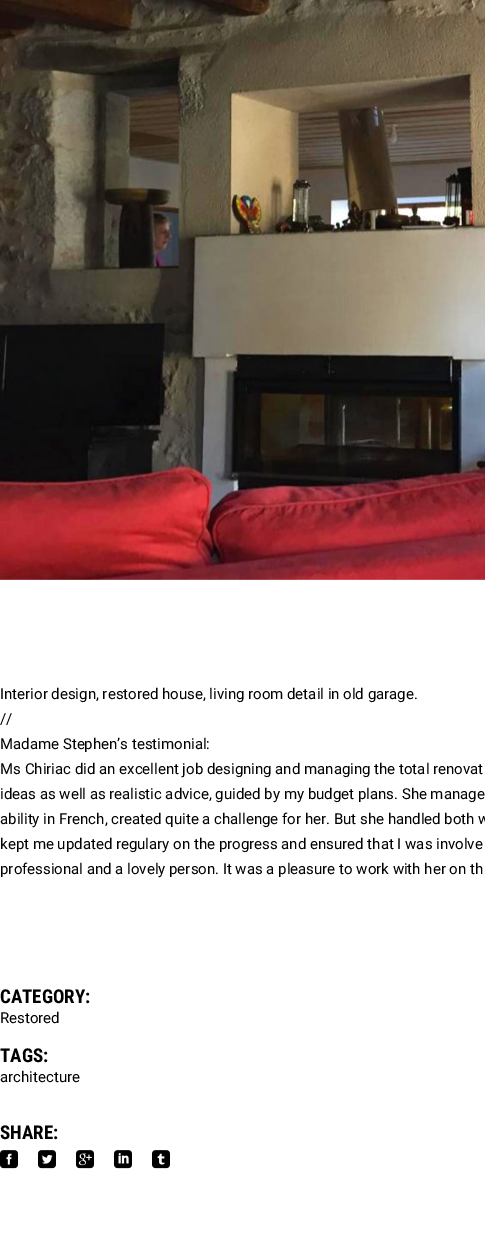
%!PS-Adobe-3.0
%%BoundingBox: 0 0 485 1245
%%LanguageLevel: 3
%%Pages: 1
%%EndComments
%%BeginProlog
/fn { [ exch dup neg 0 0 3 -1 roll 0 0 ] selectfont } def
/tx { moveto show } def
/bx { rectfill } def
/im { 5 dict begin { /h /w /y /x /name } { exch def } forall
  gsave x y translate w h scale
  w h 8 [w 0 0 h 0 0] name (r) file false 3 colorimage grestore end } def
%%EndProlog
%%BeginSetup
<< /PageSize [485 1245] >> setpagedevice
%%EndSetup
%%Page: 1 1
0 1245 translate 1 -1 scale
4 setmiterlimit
1 setgray
0 0 485 1245 bx
(image0.raw) 0 0 485 580 im
/Roboto-Regular 15 fn
0 setgray
(Interior design, restored house, living room detail in old garage.) 0 699 tx
(//) 0 724 tx
(Madame Stephen’s testimonial:) 0 749 tx
(Ms Chiriac did an excellent job designing and managing the total renovat) 0 774 tx
(ideas as well as realistic advice, guided by my budget plans. She manage) 0 799 tx
(ability in French, created quite a challenge for her. But she handled both w) 0 824 tx
(kept me updated regulary on the progress and ensured that I was involve) 0 849 tx
(professional and a lovely person. It was a pleasure to work with her on th) 0 874 tx
/RobotoCondensed-Bold 19 fn
(CATEGORY:) 0 1003 tx
/Roboto-Regular 15 fn
(Restored) 0 1023 tx
/RobotoCondensed-Bold 19 fn
(TAGS:) 0 1062 tx
/Roboto-Regular 15 fn
(architecture) 0 1082 tx
/RobotoCondensed-Bold 19 fn
(SHARE:) 0 1139 tx
(image1.raw) 0 1150 18 19 im
(image2.raw) 38 1150 18 19 im
(image3.raw) 76 1150 18 19 im
(image4.raw) 114 1150 18 19 im
(image5.raw) 152 1150 18 19 im
showpage
%%EOF
